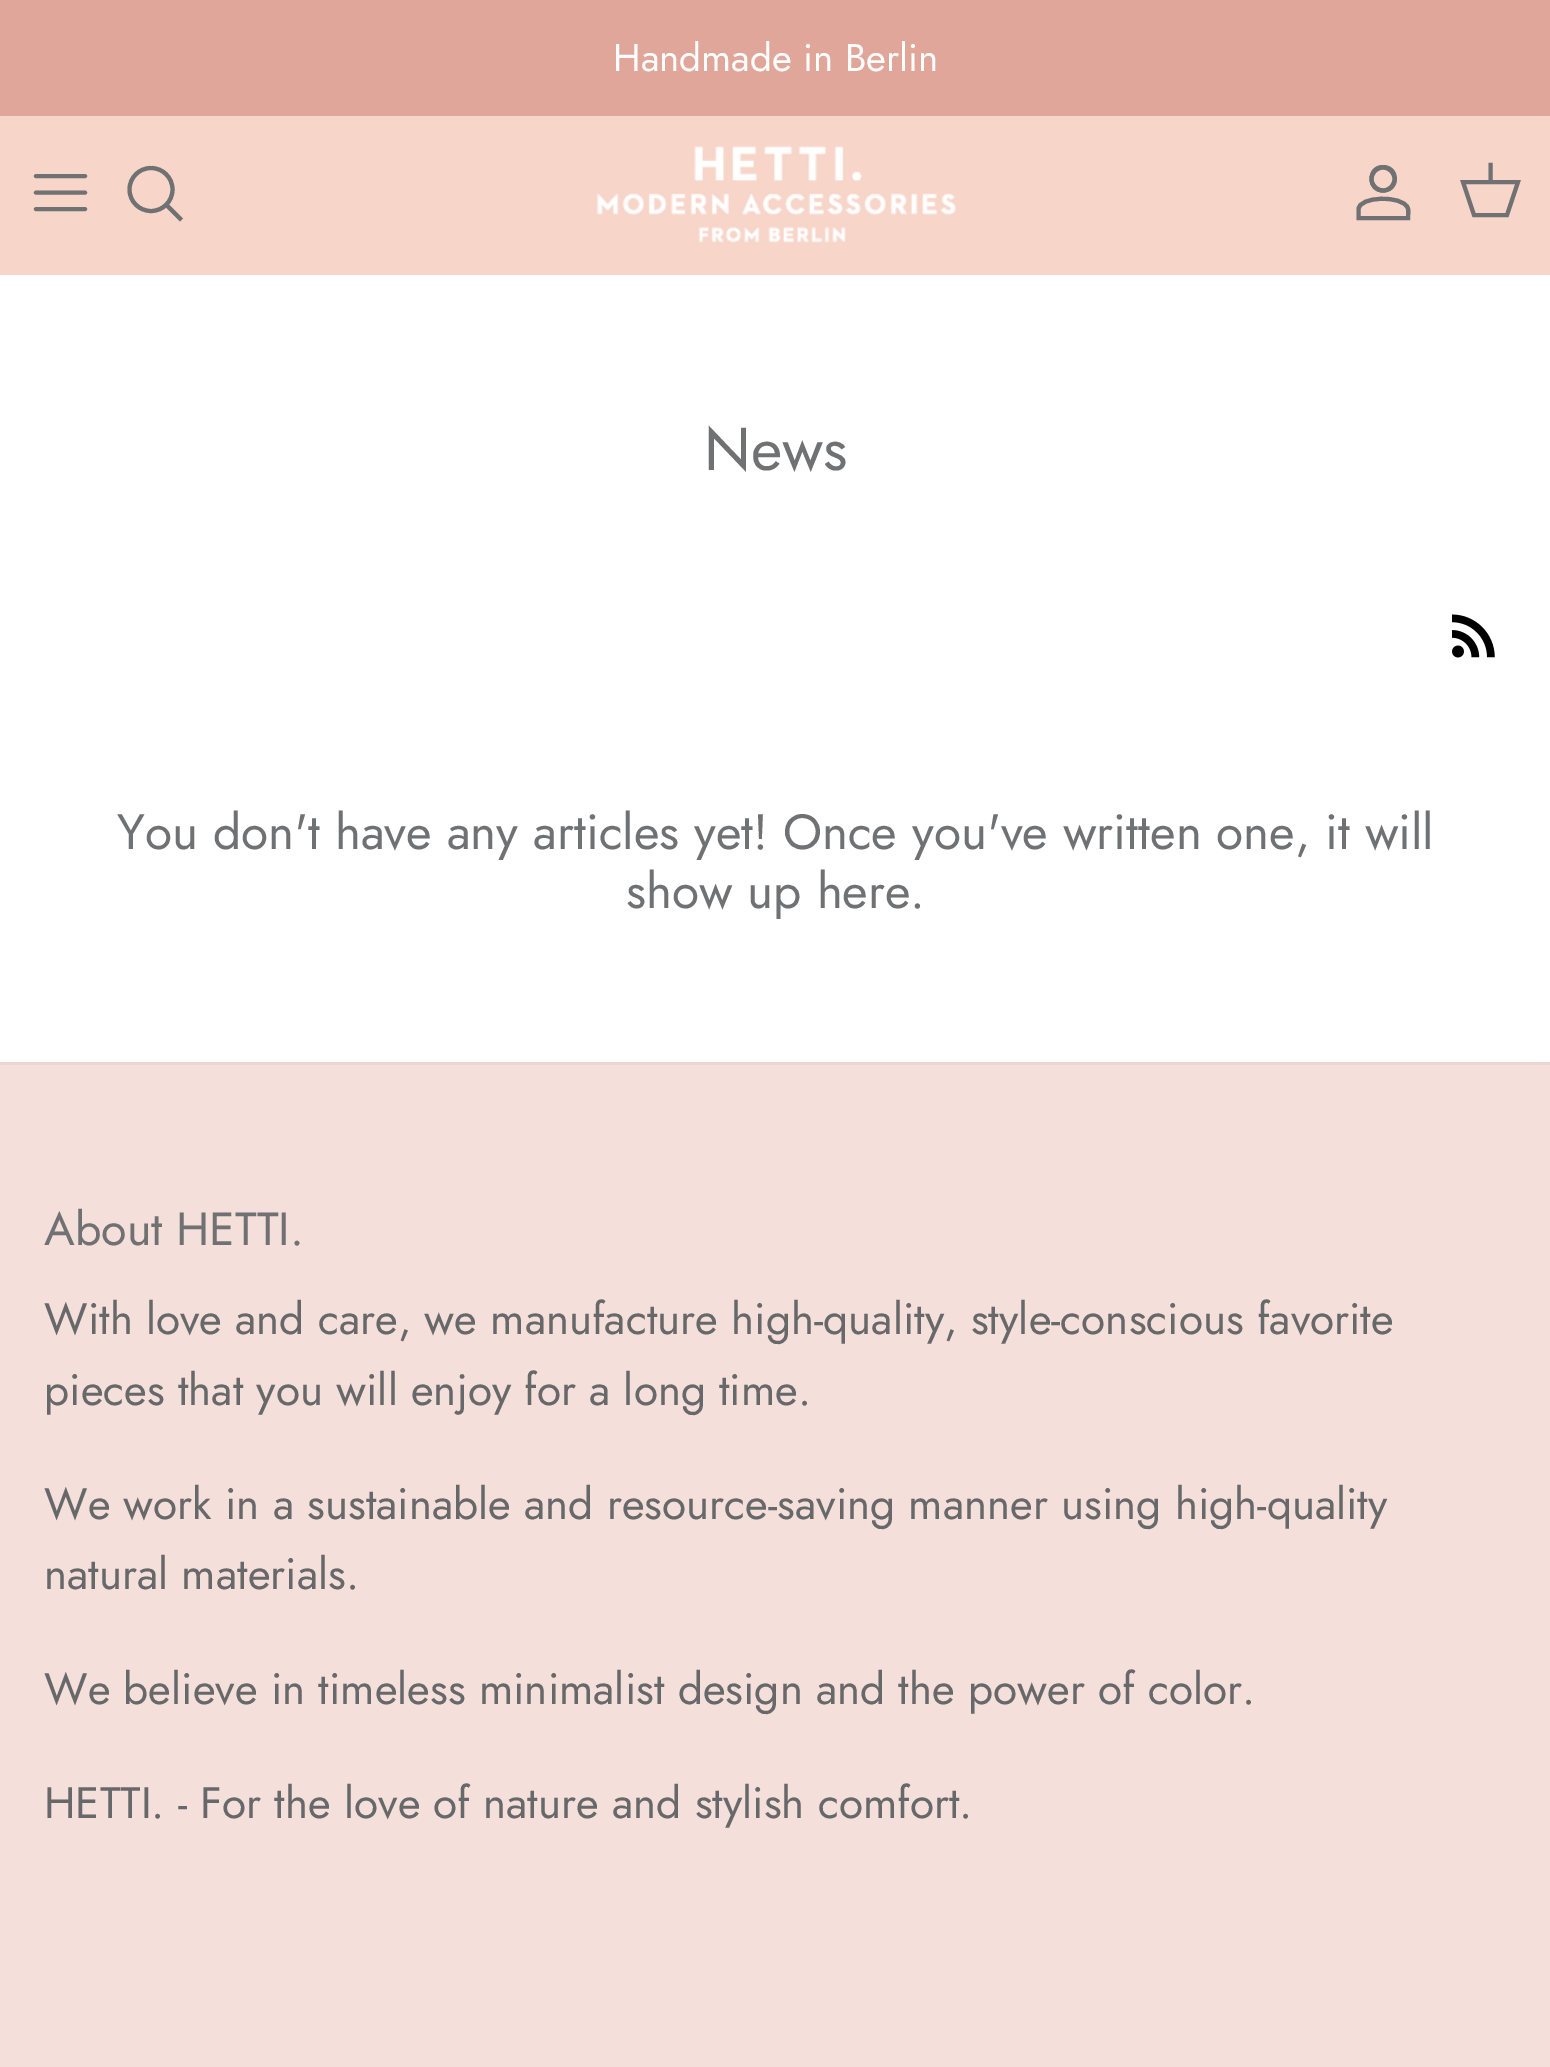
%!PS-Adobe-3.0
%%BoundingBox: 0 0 1550 2067
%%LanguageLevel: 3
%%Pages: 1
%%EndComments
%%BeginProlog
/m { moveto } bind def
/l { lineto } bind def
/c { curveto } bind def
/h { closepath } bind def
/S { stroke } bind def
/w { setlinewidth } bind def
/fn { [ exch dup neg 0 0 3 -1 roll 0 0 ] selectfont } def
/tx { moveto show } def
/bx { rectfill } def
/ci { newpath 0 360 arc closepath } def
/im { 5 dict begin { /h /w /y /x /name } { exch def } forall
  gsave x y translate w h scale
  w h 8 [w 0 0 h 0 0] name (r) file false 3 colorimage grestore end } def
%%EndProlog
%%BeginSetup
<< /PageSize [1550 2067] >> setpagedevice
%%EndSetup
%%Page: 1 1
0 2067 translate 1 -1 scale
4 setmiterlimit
1 setgray
0 0 1550 2067 bx
0.875 0.651 0.6 setrgbcolor
0 0 1550 116 bx
/Jost-Regular 38.5 fn
1 setgray
(Handmade in Berlin) 613 71 tx
0.969 0.835 0.788 setrgbcolor
0 116 1550 159 bx
0.439 0.443 0.451 setrgbcolor
4.1 w
1 setlinecap
1 setlinejoin
36 192.5 m 85 192.5 l 36 176 m 85 176 l 36 209 m 85 209 l S
0 setlinecap
0 setlinejoin
151 189.5 21.5 ci S
2 setlinecap
167.5 206 m 180 218.5 l S
(image0.raw) 596 145 360 98 im
1383 165 m 1401.5 165 1401.5 192.5 1383 192.5 c 1365 192.5 1365 165 1383 165 c h 1383 169 m 1370.5 169 1370 188 1383 188.5 c 1396 189 1396.5 169 1383 169 c h eofill
0 setlinecap
1383 179 11.5 ci S
1358.5 209.5 m 1358.5 196 1402 195 1407.5 207.5 c 1409 210 1408 214.5 1408 218 c 1358.5 218 l h S
1463 182 m 1518 182 l 1507 215 l 1474 215 l h S
2 setlinecap
1490.5 181.5 m 1490.5 165 l S
/Jost-Regular 60.5 fn
(News) 704 470 tx
(image1.raw) 1452 614 43 44 im
/Jost-Regular 49.5 fn
(You don't have any articles yet! Once you've written one, it will) 117 849 tx
(show up here.) 626 908 tx
0.957 0.875 0.859 setrgbcolor
0 1065 1550 1002 bx
0.925 0.839 0.82 setrgbcolor
0 1062 1550 3 bx
/Jost-Regular 46.5 fn
0.439 0.443 0.451 setrgbcolor
(About HETTI.) 44 1245 tx
/Jost-Regular 44 fn
0.404 0.408 0.412 setrgbcolor
(With love and care, we manufacture high-quality, style-conscious favorite) 44 1334 tx
(pieces that you will enjoy for a long time.) 44 1405 tx
(We work in a sustainable and resource-saving manner using high-quality) 44 1519 tx
(natural materials.) 44 1589 tx
(We believe in timeless minimalist design and the power of color.) 44 1704 tx
(HETTI. - For the love of nature and stylish comfort.) 44 1818 tx
showpage
%%EOF
